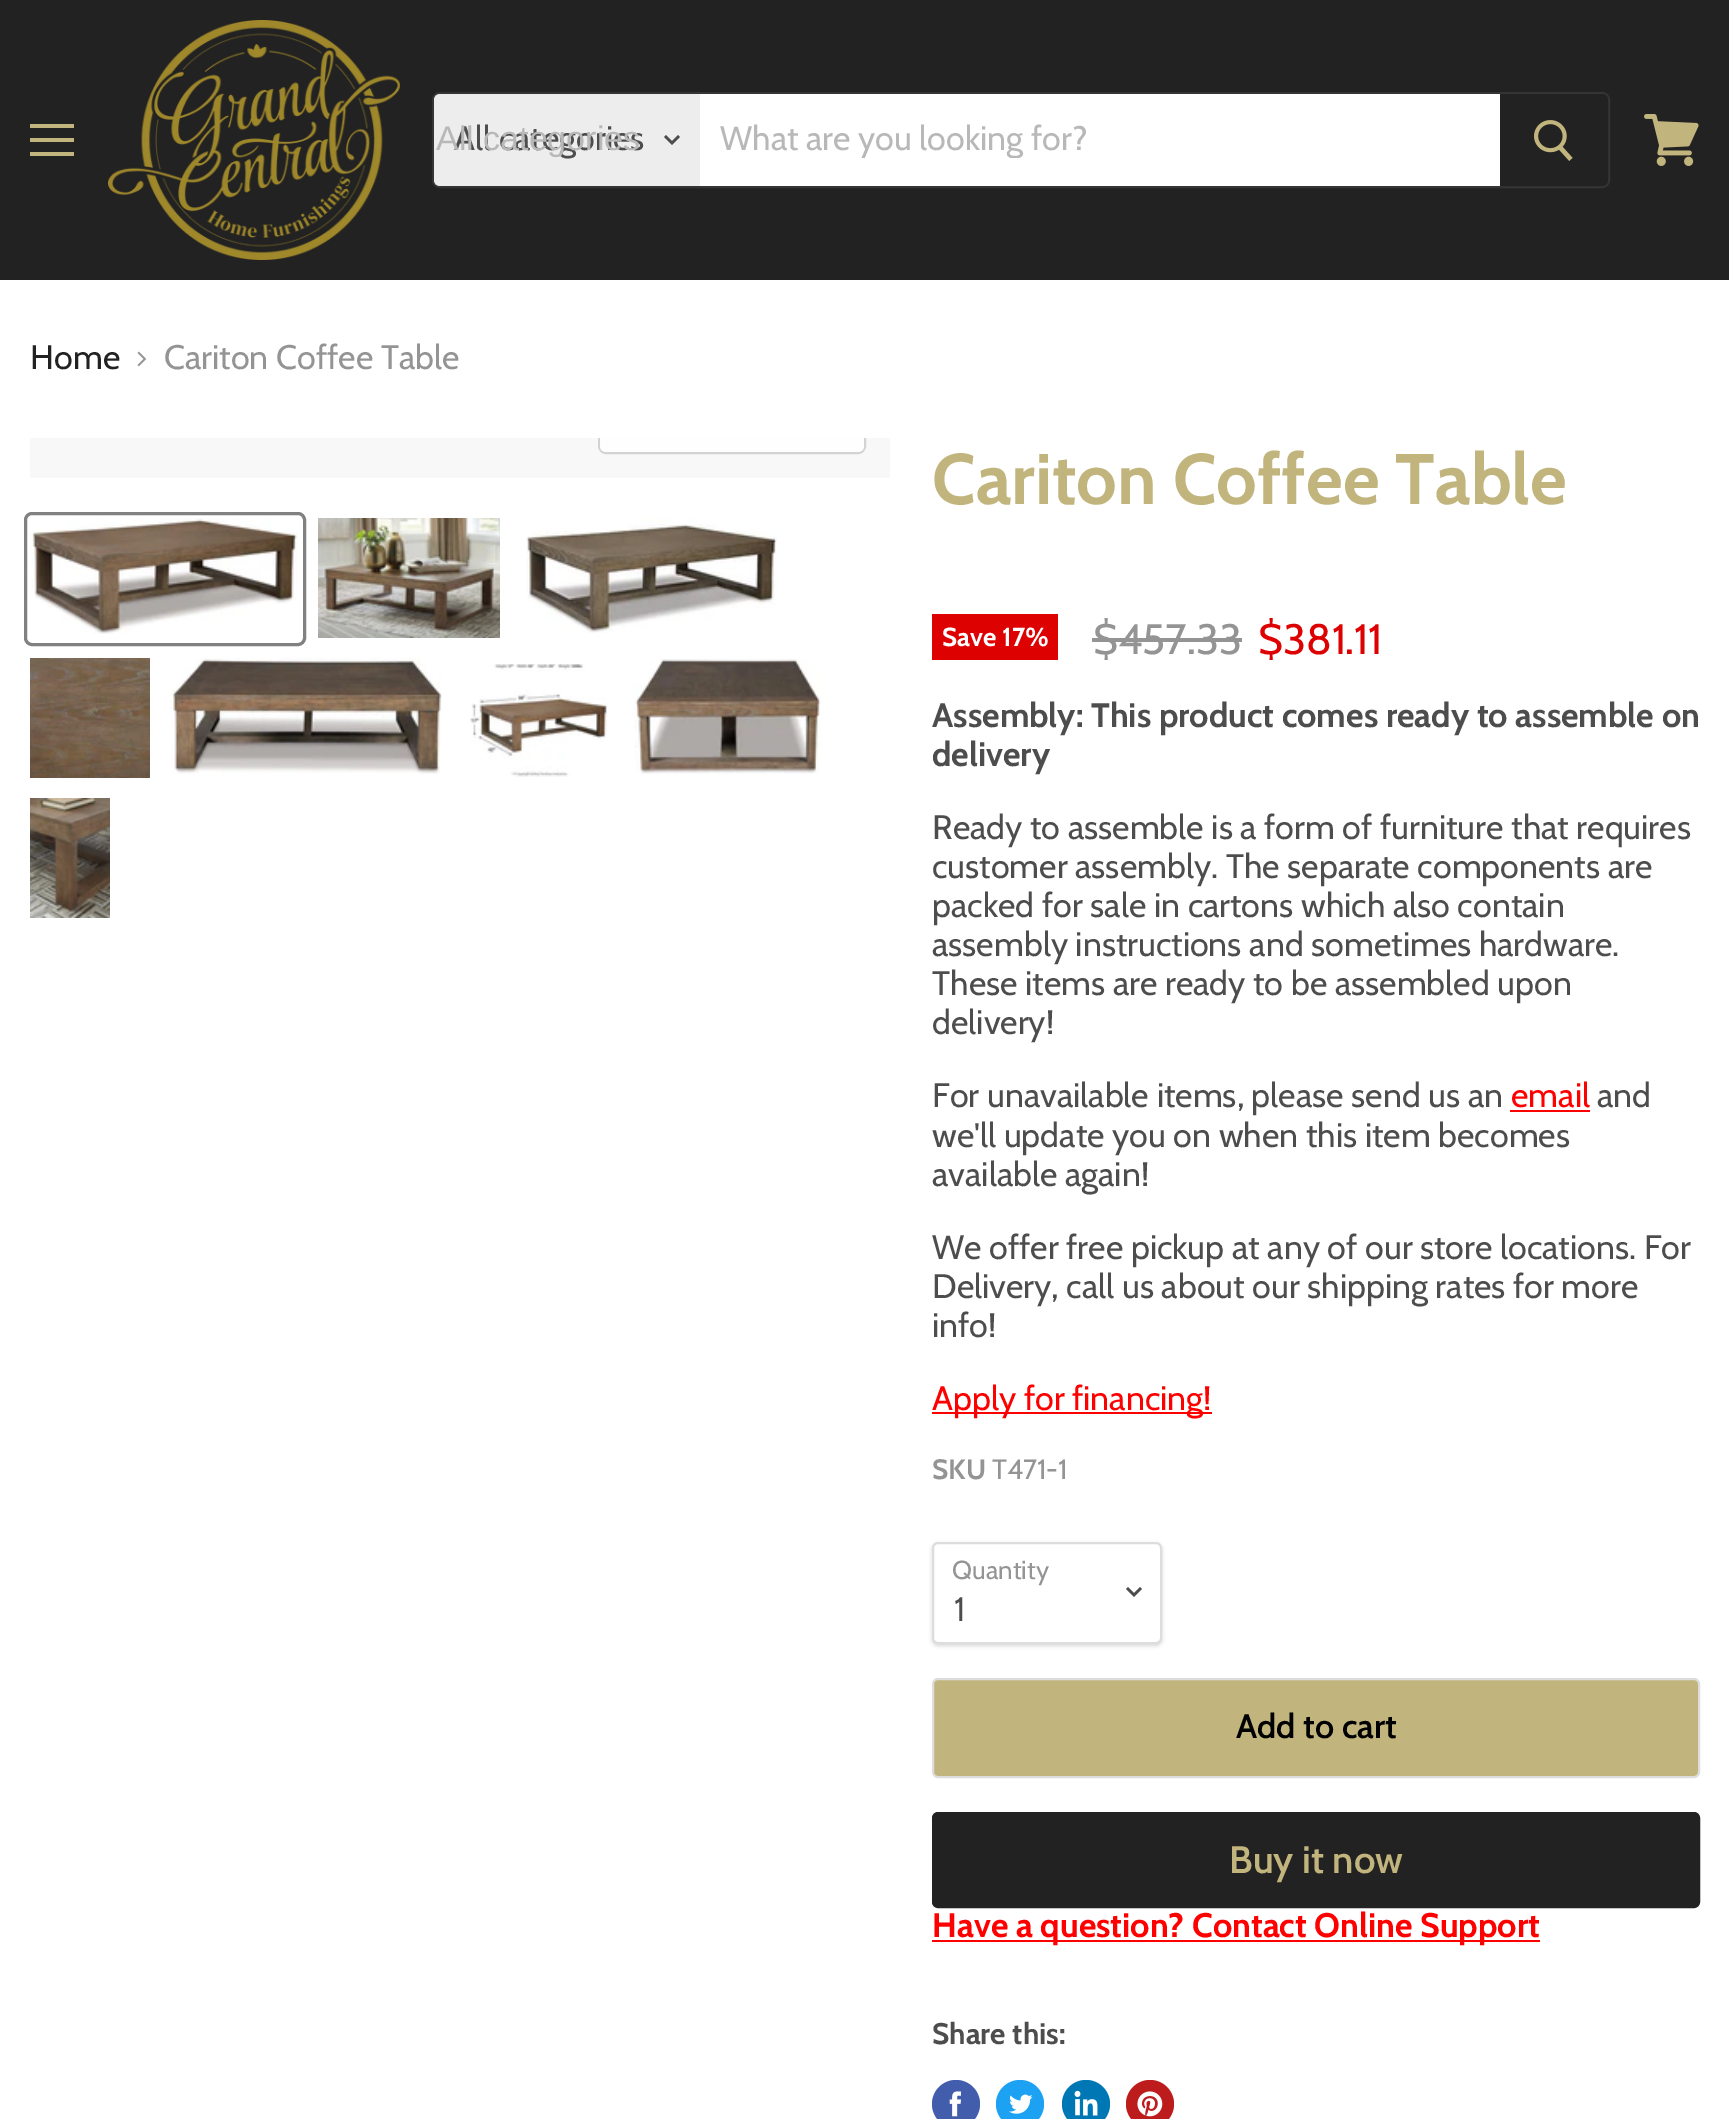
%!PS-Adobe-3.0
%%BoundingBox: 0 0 1729 2119
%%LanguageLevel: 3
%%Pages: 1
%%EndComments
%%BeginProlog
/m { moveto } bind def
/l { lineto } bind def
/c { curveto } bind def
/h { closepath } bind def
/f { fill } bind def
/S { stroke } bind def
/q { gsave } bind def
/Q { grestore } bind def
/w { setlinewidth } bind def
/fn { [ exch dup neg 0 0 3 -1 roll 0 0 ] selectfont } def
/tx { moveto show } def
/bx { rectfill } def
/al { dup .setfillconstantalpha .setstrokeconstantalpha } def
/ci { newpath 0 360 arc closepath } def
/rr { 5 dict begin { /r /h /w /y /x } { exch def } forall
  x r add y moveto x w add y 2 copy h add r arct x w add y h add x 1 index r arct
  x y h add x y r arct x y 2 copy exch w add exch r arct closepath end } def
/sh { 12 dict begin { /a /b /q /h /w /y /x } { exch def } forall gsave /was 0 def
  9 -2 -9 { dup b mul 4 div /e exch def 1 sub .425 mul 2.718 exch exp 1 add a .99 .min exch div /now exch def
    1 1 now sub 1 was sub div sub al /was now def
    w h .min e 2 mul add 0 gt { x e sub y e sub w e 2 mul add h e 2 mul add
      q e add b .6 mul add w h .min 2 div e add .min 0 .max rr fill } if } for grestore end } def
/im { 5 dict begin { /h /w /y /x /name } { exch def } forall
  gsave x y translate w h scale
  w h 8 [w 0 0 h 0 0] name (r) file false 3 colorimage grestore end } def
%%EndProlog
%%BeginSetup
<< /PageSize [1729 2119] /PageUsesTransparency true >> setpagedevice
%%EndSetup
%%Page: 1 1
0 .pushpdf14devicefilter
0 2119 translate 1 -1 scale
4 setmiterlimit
1 setgray
0 0 1729 2119 bx
0.133 setgray
0 0 1729 280 bx
0.757 0.706 0.486 setrgbcolor
30 124 44 4 bx
30 138 44 4 bx
30 152 44 4 bx
(image0.raw) 108 20 292 240 im
0.2 al
0.502 setgray
2 w
433 93 1176 94 7 rr S
1 al
0.929 setgray
440 94 m 700 94 l 700 186 l 440 186 l 436.5 186 434 183.5 434 180 c 434 100 l 434 96.5 436.5 94 440 94 c h f
/Cabin-Regular 34 fn
0.302 setgray
(All categories) 454 150 tx
/LiberationSans-Regular 34 fn
0.722 setgray
(All categories) 436 150 tx
0.302 setgray
2.5 w
2 setlinecap
672 143 m 678 137 l 672 143 m 666 137 l S
1 setgray
700 94 800 92 bx
q
720 118 760 40 rectclip
/Cabin-Regular 34 fn
0.722 setgray
(What are you looking for?) 720 150 tx
Q
0.133 setgray
1501 95 m 1602 95 l 1605 95 1607 97 1607 100 c 1607 180 l 1607 183 1605 185 1602 185 c 1501 185 l h q f Q
2 w
0 setlinecap
S
(image1.raw) 1534 120 39 41 im
(image2.raw) 1644 114 55 52 im
/Cabin-Regular 34 fn
(Home) 30 369 tx
(image3.raw) 137 351 10 16 im
0.58 setgray
(Cariton Coffee Table) 164 369 tx
0.973 setgray
30 438 860 40 bx
q
30 438 860 40 rectclip
0.827 setgray
599 393 266 60 7 rr S
Q
0.9 al
1 setgray
600 438 m 864 438 l 864 446 l 864 449.5 861.5 452 858 452 c 606 452 l 602.5 452 600 449.5 600 446 c h f
1 al
0.506 setgray
3 w
25.5 513.5 279 131 6.5 rr S
(image4.raw) 30 518 268 116 im
(image5.raw) 318 518 182 120 im
(image6.raw) 526 518 251 115 im
(image7.raw) 30 658 120 120 im
(image8.raw) 170 658 272 116 im
(image9.raw) 470 664 138 113 im
(image10.raw) 634 659 187 115 im
(image11.raw) 30 798 80 120 im
/Cabin-Bold 71.5 fn
0.757 0.706 0.486 setrgbcolor
(Cariton Coffee Table) 932 504 tx
0.871 0.004 0.004 setrgbcolor
932 614 126 46 bx
/Cabin-Bold 26 fn
1 setgray
(Save 17%) 942 646 tx
/Cabin-Regular 42.5 fn
0.58 setgray
($457.33) 1093 654 tx
1092 638 150 4 bx
0.871 0.004 0.004 setrgbcolor
($381.11) 1258 654 tx
/Cabin-Bold 34 fn
0.302 setgray
(Assembly: This product comes ready to assemble on) 932 727 tx
(delivery) 932 766 tx
/Cabin-Regular 34 fn
(Ready to assemble is a form of furniture that requires) 932 839 tx
(customer assembly. The separate components are) 932 878 tx
(packed for sale in cartons which also contain) 932 917 tx
(assembly instructions and sometimes hardware.) 932 956 tx
(These items are ready to be assembled upon) 932 995 tx
(delivery!) 932 1034 tx
(For unavailable items, please send us an) 932 1107 tx
1 0 0 setrgbcolor
(email) 1511 1107 tx
1510 1110 80 2 bx
0.302 setgray
(and) 1597 1107 tx
(we'll update you on when this item becomes) 932 1147 tx
(available again!) 932 1186 tx
(We offer free pickup at any of our store locations. For) 932 1259 tx
(Delivery, call us about our shipping rates for more) 932 1298 tx
(info!) 932 1337 tx
1 0 0 setrgbcolor
932 1412 280 2 bx
(Apply for financing!) 932 1410 tx
/Cabin-Bold 28 fn
0.58 setgray
(SKU) 932 1479 tx
/Cabin-Regular 28 fn
(T471-1) 992 1479 tx
0 setgray
932 1544 230 102 6 2 0.15 sh
1 setgray
933 1543 228 100 5 rr q f Q
0.867 setgray
2 w
S
/Cabin-Regular 26 fn
0.58 setgray
(Quantity) 952 1579 tx
0.302 setgray
2.5 w
2 setlinecap
1134 1595 m 1140 1589 l 1134 1595 m 1128 1589 l S
/Cabin-Regular 34 fn
(1) 954 1621 tx
0.757 0.706 0.486 setrgbcolor
933 1679 766 98 5 rr q f Q
0.867 setgray
2 w
0 setlinecap
S
/Cabin-SemiBold 34 fn
0 setgray
(Add to cart) 1236 1738 tx
0.133 setgray
933 1813 766 94 5 rr q f Q
S
/Cabin-SemiBold 38.25 fn
0.757 0.706 0.486 setrgbcolor
(Buy it now) 1229 1873 tx
1 0 0 setrgbcolor
932 1940 608 2 bx
/Cabin-Bold 34 fn
(Have a question? Contact Online Support) 932 1937 tx
/Cabin-Bold 29.75 fn
0.302 setgray
(Share this:) 932 2044 tx
0.259 0.365 0.671 setrgbcolor
956 2104 24 ci f
(image12.raw) 949 2091 12 26 im
0.114 0.631 0.949 setrgbcolor
1020 2104 24 ci f
(image13.raw) 1009 2094 24 20 im
0 0.467 0.71 setrgbcolor
1086 2104 24 ci f
(image14.raw) 1074 2090 24 26 im
0.741 0.11 0.11 setrgbcolor
1150 2104 24 ci f
(image15.raw) 1137 2091 26 26 im
.poppdf14devicefilter showpage
%%EOF
